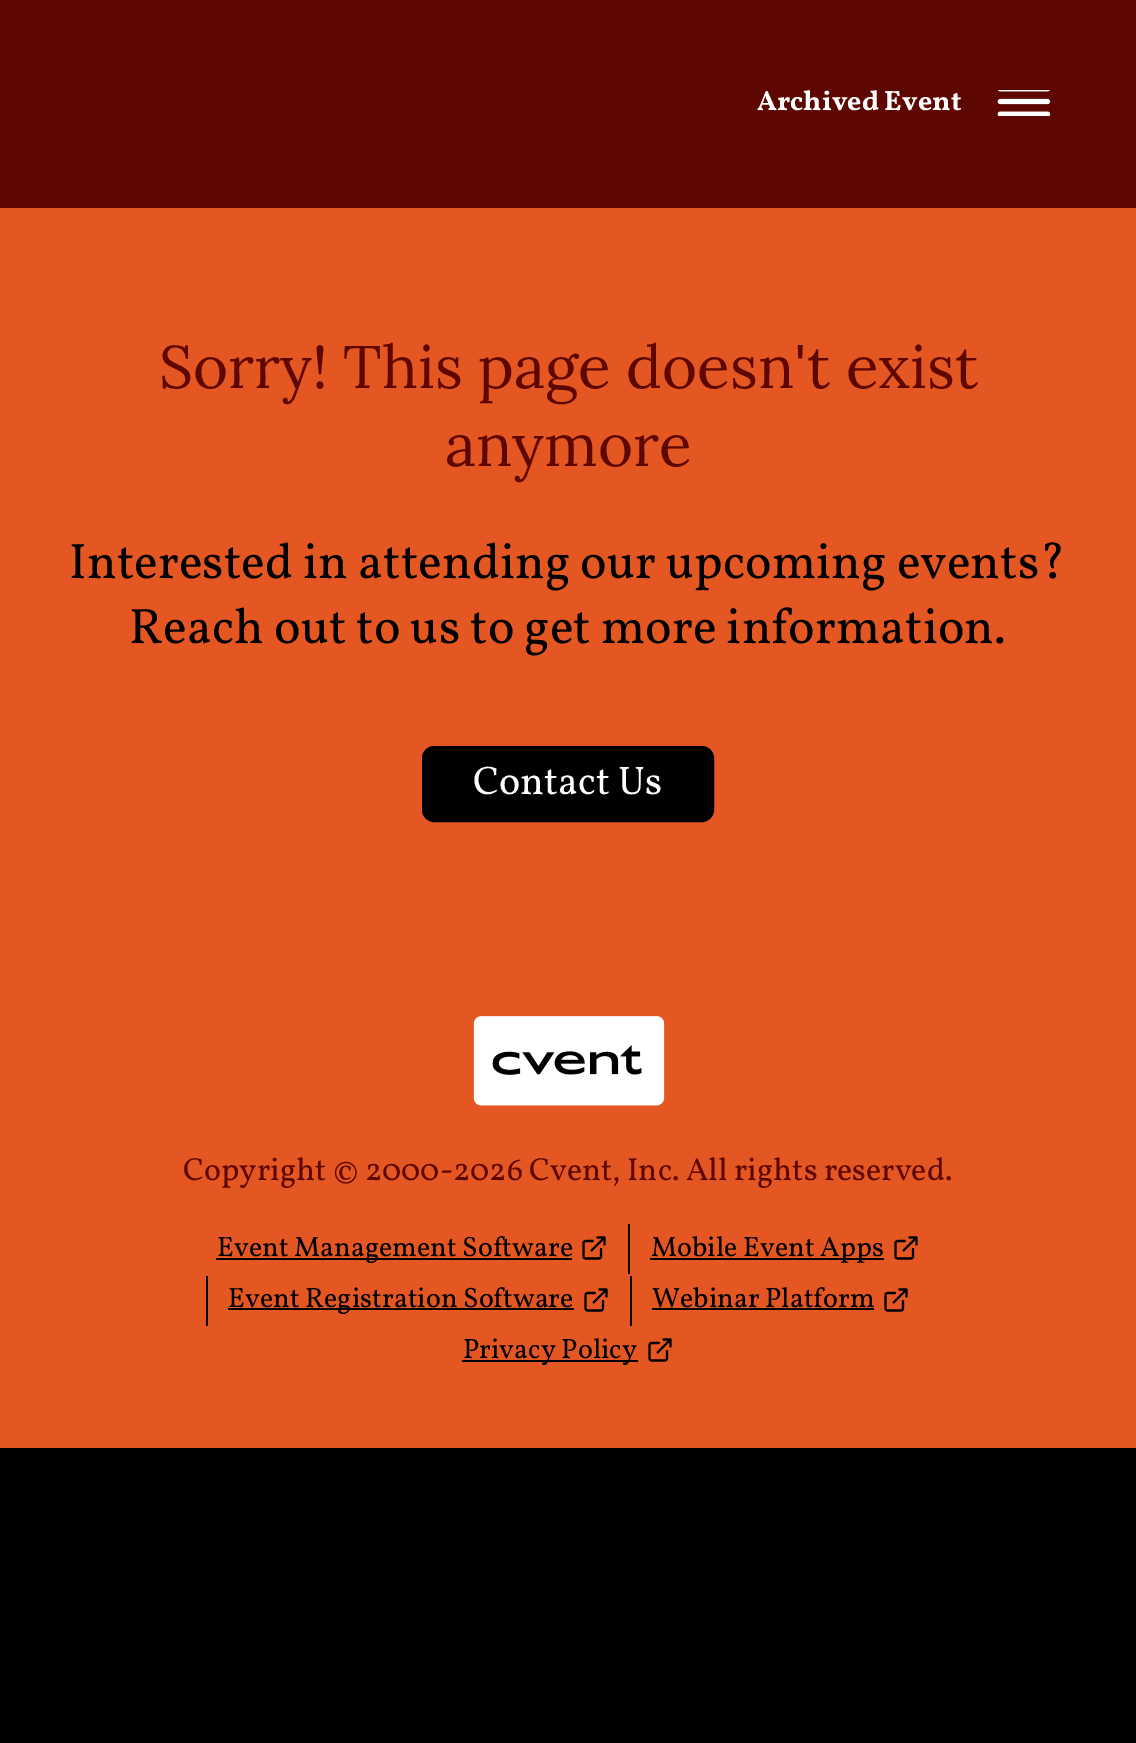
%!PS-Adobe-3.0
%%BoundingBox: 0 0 1136 1743
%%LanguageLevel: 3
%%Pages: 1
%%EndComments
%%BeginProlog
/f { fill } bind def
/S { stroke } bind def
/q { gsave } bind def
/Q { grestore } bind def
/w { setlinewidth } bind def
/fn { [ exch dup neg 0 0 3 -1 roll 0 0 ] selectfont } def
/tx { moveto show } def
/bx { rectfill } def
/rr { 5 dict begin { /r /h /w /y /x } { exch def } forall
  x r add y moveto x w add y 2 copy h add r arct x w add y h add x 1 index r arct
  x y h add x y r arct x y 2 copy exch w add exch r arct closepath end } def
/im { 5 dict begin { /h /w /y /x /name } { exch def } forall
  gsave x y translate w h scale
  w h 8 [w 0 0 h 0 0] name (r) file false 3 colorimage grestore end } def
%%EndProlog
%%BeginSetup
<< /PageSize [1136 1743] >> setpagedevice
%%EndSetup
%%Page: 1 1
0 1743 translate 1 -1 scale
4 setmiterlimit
0 setgray
0 0 1136 1743 bx
0.369 0.024 0 setrgbcolor
0 0 1136 208 bx
/Vollkorn-Bold 28 fn
1 setgray
(Archived Event) 757 110 tx
(image0.raw) 997 90 54 26 im
0.894 0.337 0.133 setrgbcolor
0 208 1136 1240 bx
/Lora-Regular 60 fn
0.369 0.024 0 setrgbcolor
(Sorry! This page doesn't exist) 159 388 tx
(anymore) 445 466 tx
/Vollkorn-Regular 50 fn
0 setgray
(Interested in attending our upcoming events?) 69 578 tx
(Reach out to us to get more information.) 129 643 tx
423 747 290 74 11 rr q f Q
2 w
S
/Vollkorn-Regular 40 fn
1 setgray
(Contact Us) 473 794 tx
(image1.raw) 473 1016 192 90 im
/Vollkorn-Regular 32 fn
0.369 0.024 0 setrgbcolor
(Copyright © 2000-2026 Cvent, Inc. All rights reserved.) 183 1180 tx
0 setgray
216 1258 356 2 bx
/Vollkorn-Regular 28 fn
(Event Management Software) 217 1256 tx
(image2.raw) 582 1236 24 24 im
628 1224 2 50 bx
650 1258 234 2 bx
(Mobile Event Apps) 651 1256 tx
(image2.raw) 894 1236 24 24 im
206 1276 2 50 bx
228 1308 346 2 bx
(Event Registration Software) 228 1307 tx
(image2.raw) 584 1288 24 24 im
630 1276 2 50 bx
(Webinar Platform) 652 1307 tx
652 1308 222 2 bx
(image2.raw) 884 1288 24 24 im
462 1360 176 2 bx
(Privacy Policy) 463 1358 tx
(image2.raw) 648 1338 24 24 im
showpage
%%EOF
